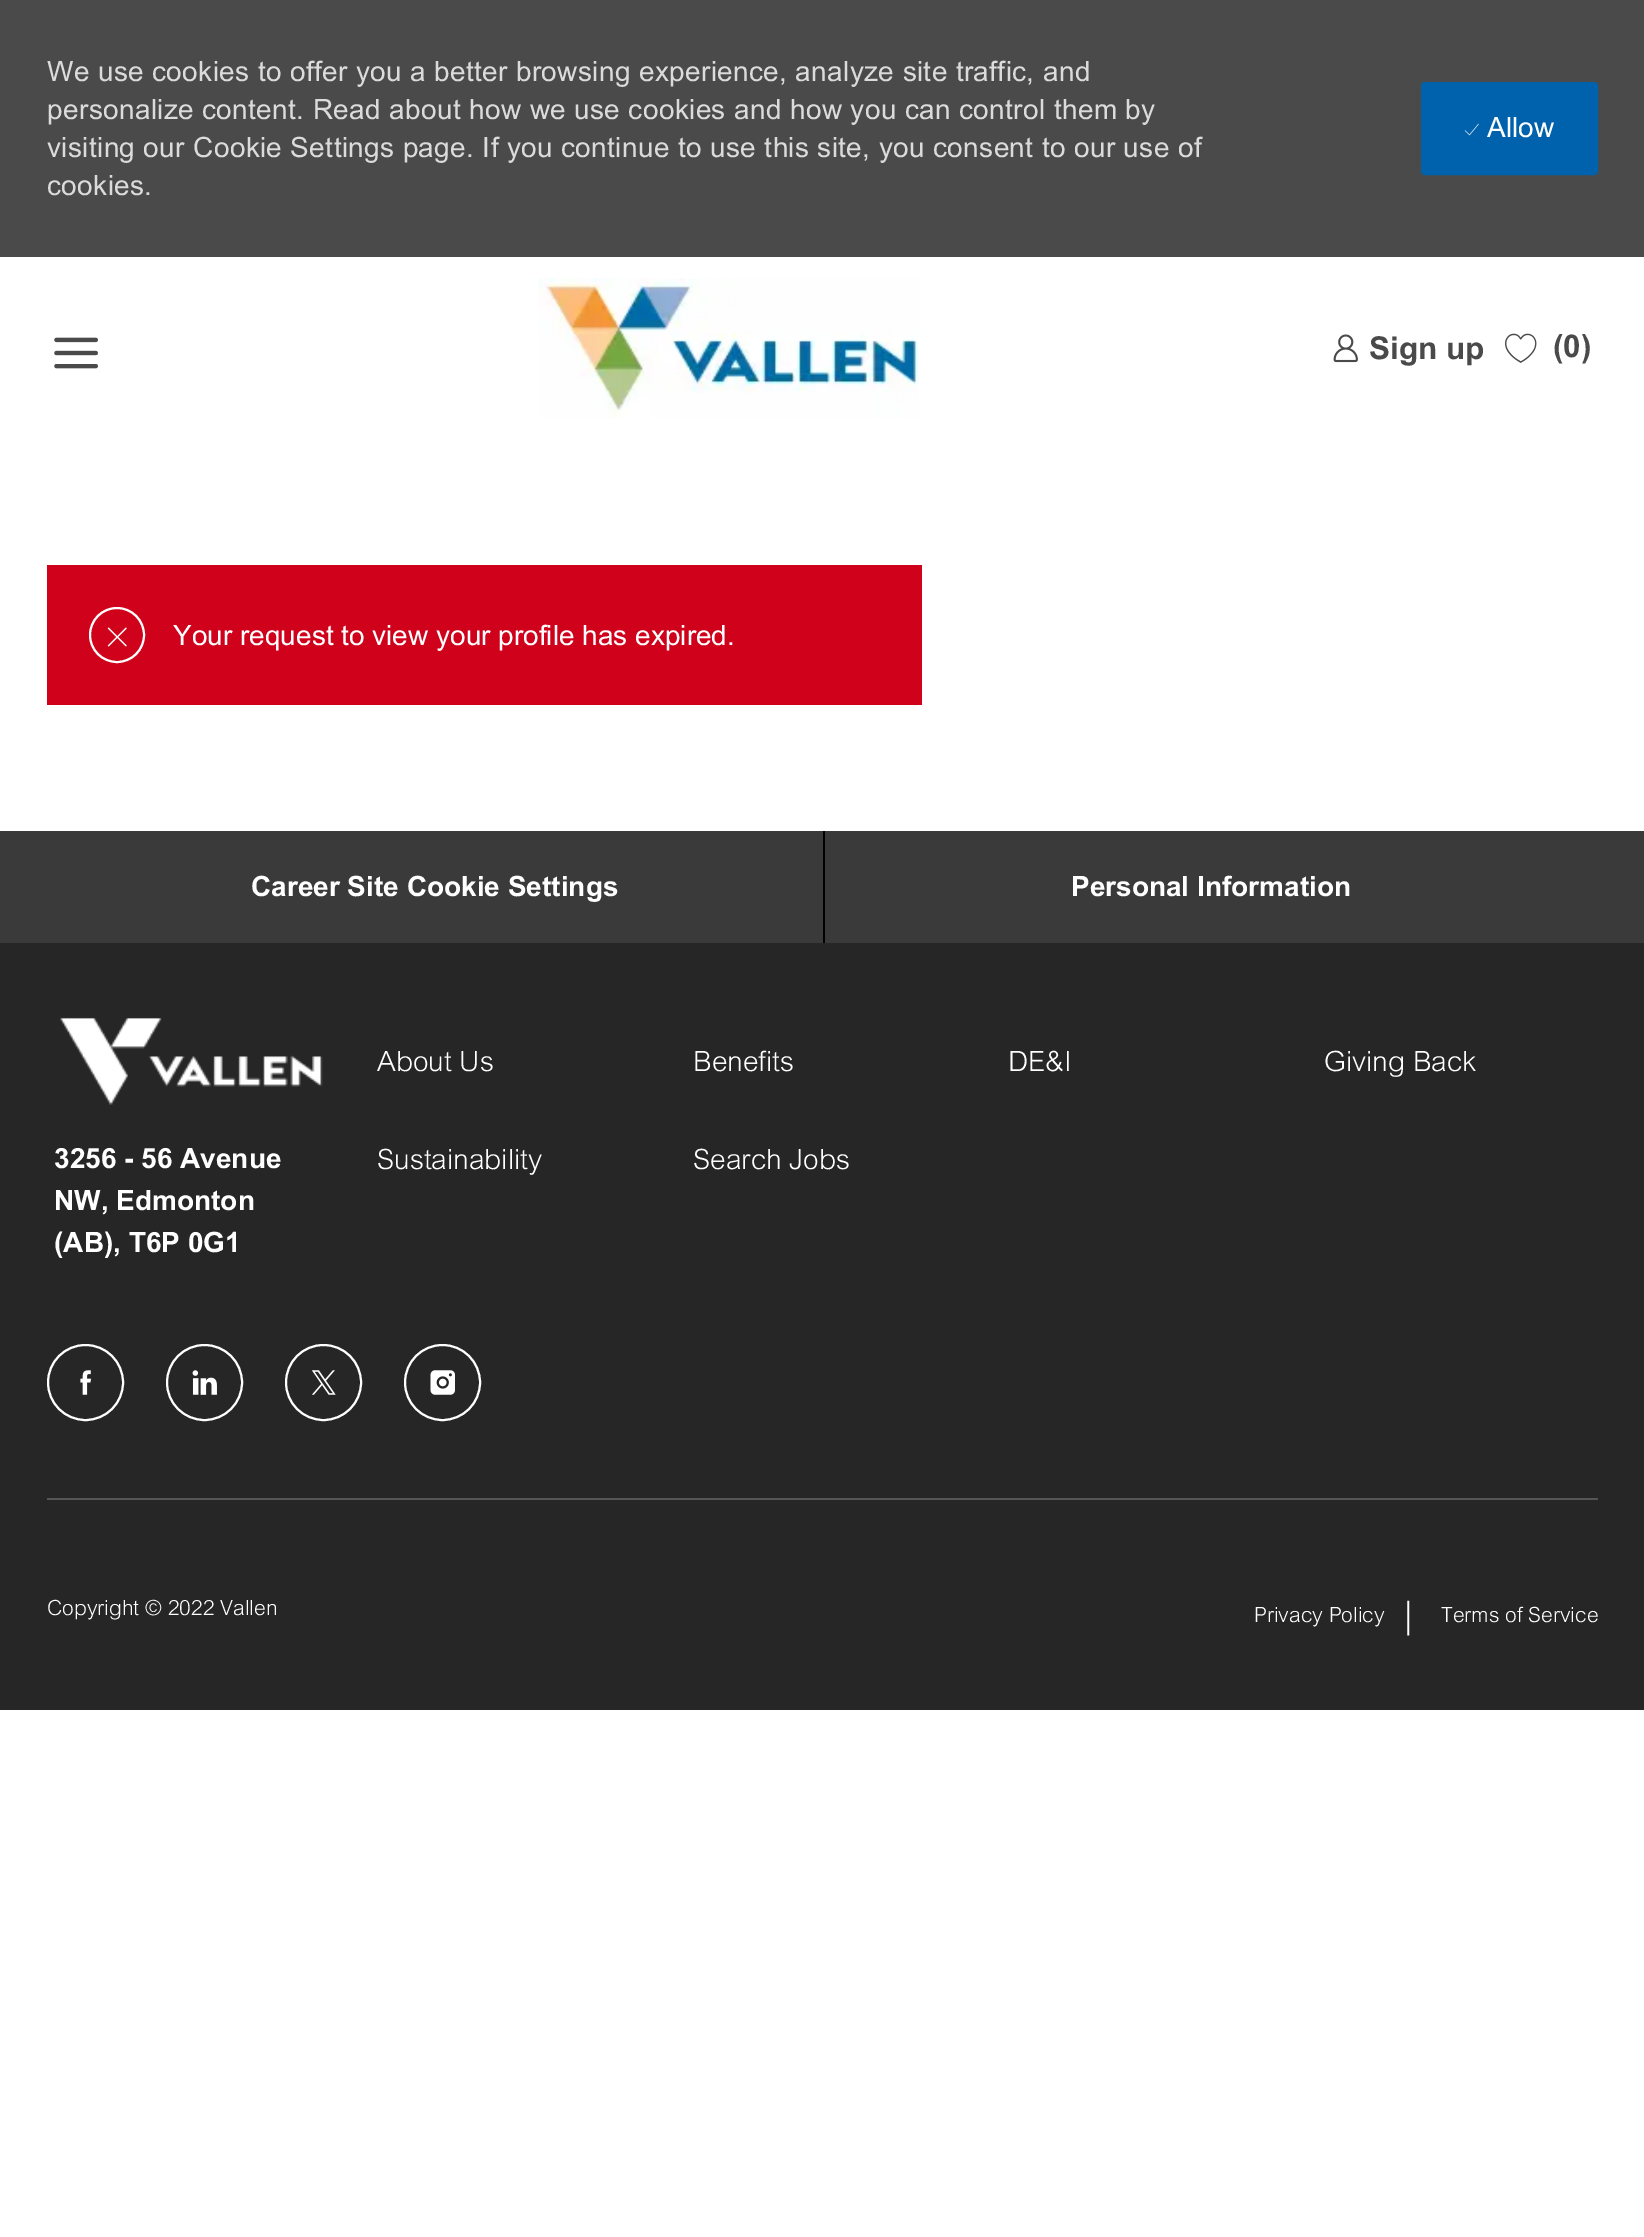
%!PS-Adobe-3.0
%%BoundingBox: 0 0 1644 2237
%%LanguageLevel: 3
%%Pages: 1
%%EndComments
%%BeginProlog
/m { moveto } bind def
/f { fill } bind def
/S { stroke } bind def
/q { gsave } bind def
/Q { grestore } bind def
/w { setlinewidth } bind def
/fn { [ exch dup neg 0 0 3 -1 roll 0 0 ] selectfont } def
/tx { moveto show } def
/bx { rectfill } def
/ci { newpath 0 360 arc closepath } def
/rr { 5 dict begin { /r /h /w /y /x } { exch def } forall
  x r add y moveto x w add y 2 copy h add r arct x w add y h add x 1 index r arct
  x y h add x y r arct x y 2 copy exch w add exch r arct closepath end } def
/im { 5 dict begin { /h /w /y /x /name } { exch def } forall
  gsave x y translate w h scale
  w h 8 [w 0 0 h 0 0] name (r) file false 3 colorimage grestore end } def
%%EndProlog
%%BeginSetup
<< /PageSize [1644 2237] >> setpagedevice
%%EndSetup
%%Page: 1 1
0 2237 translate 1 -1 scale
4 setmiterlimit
1 setgray
0 0 1644 2237 bx
0.29 setgray
0 0 1644 257 bx
/Arial-Regular 28 fn
0.859 setgray
47 81 m 0.35 0 (We use cookies to offer you a better browsing experience, analyze site traffic, and) ashow
47 119 m 0.35 0 (personalize content. Read about how we use cookies and how you can control them by) ashow
47 157 m 0.35 0 (visiting our Cookie Settings page. If you continue to use this site, you consent to our use of) ashow
47 195 m 0.35 0 (cookies.) ashow
0 0.38 0.678 setrgbcolor
1422 83 175 91 3 rr q f Q
2 w
S
(image0.raw) 1464 123 15 13 im
1 setgray
(Allow) 1487 137 tx
(image1.raw) 54 337 44 32 im
(image2.raw) 539 278 380 140 im
(image3.raw) 1333 334 25 29 im
/Arial-Bold 31.5 fn
0.29 setgray
(Sign up) 1369 359 tx
(image4.raw) 1505 333 32 30 im
(\(0\)) 1553 357 tx
0.816 0.008 0.106 setrgbcolor
47 565 875 140 bx
1 setgray
117 635 27 ci S
(image5.raw) 107 627 20 20 im
/Arial-Regular 28 fn
(Your request to view your profile has expired.) 173 645 tx
0.149 setgray
0 943 1644 767 bx
0.227 setgray
0 831 1644 112 bx
/Arial-Bold 28 fn
1 setgray
(Career Site Cookie Settings) 251 896 tx
0 setgray
823 831 2 112 bx
1 setgray
(Personal Information) 1071 896 tx
/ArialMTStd-Light 28 fn
(About Us) 377 1071 tx
(Benefits) 693 1071 tx
(DE&I) 1008 1071 tx
(Giving Back) 1324 1071 tx
(Sustainability) 377 1169 tx
(Search Jobs) 693 1169 tx
(image6.raw) 60 1017 263 88 im
/Arial-Bold 28 fn
(3256 - 56 Avenue) 54 1168 tx
(NW, Edmonton) 54 1210 tx
(\(AB\), T6P 0G1) 54 1252 tx
85.5 1382.5 37.5 ci S
(image7.raw) 80 1370 12 25 im
204.5 1382.5 37.5 ci S
(image8.raw) 192 1370 25 25 im
323.5 1382.5 37.5 ci S
(image9.raw) 311 1370 25 25 im
442.5 1382.5 37.5 ci S
(image10.raw) 430 1370 25 25 im
0.333 setgray
47 1498 1551 2 bx
/ArialMTStd-Light 21 fn
1 setgray
(Copyright © 2022 Vallen) 47 1615 tx
(Privacy Policy) 1254 1622 tx
/ArialMTStd-Light 38 fn
(|) 1404 1628 tx
/ArialMTStd-Light 21 fn
(Terms of Service) 1441 1622 tx
showpage
%%EOF
